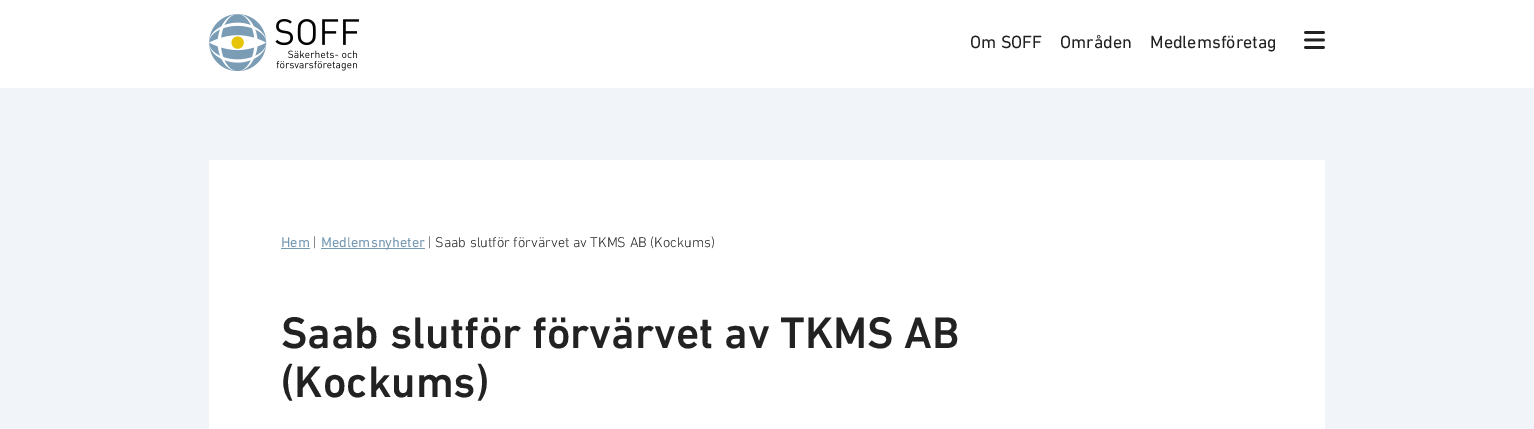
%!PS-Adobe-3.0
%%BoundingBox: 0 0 1534 429
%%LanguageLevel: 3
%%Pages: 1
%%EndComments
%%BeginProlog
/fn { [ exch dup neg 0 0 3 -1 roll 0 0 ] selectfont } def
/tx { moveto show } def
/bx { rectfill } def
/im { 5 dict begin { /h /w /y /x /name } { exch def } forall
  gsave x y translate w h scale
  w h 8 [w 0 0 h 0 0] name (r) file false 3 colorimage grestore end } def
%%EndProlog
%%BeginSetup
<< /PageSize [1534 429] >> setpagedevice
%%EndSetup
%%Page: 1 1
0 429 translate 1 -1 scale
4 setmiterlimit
0.945 0.957 0.973 setrgbcolor
0 0 1534 429 bx
1 setgray
0 0 1534 88 bx
(image0.raw) 209 14 150 57 im
/DINNext-Regular 18 fn
0.133 setgray
(Om SOFF) 970 48 tx
(Områden) 1060 48 tx
(Medlemsföretag) 1150 48 tx
(image1.raw) 1304 31 21 18 im
1 setgray
209 160 1116 269 bx
/DINNext-Regular 14.4 fn
0.471 0.608 0.706 setrgbcolor
(Hem) 281 247 tx
281 248 29 1 bx
/DINNext-Light 14.4 fn
0.133 setgray
(|) 313 247 tx
0.471 0.608 0.706 setrgbcolor
321 248 104 1 bx
/DINNext-Regular 14.4 fn
(Medlemsnyheter) 321 247 tx
/DINNext-Light 14.4 fn
0.133 setgray
(| Saab slutför förvärvet av TKMS AB \(Kockums\)) 428 247 tx
/DINNext-Medium 45 fn
(Saab slutför förvärvet av TKMS AB) 281 348 tx
(\(Kockums\)) 281 397 tx
showpage
%%EOF
